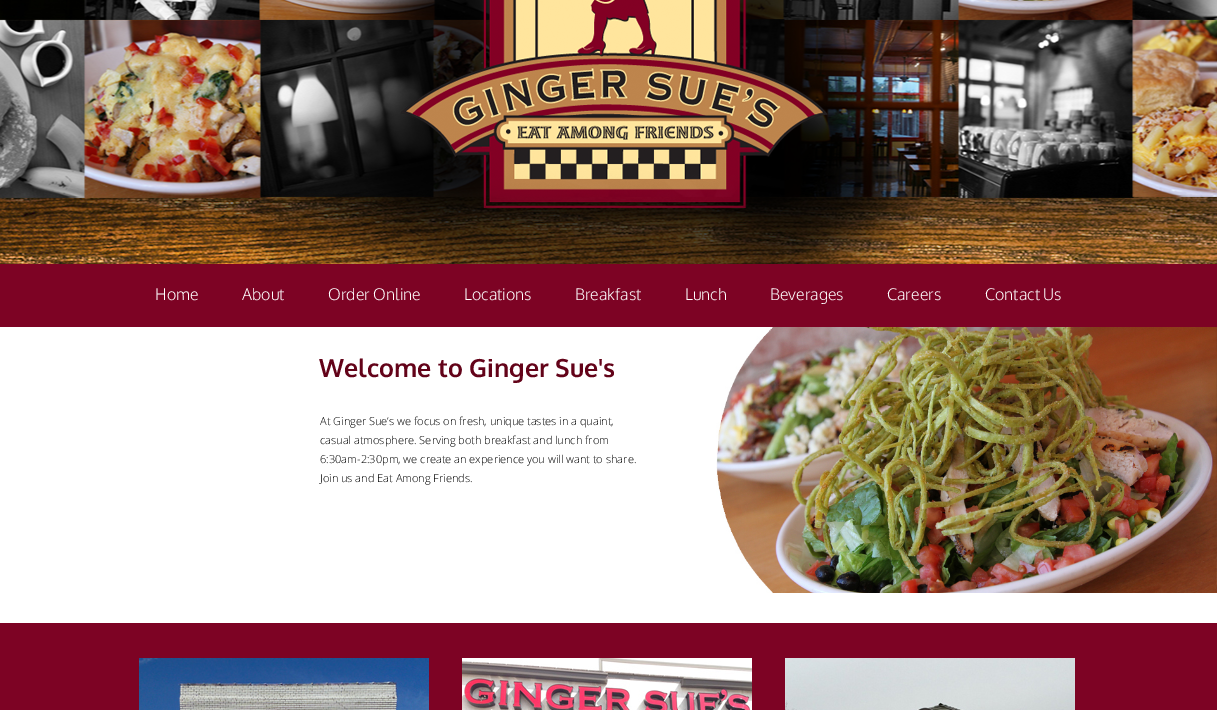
%!PS-Adobe-3.0
%%BoundingBox: 0 0 1217 710
%%LanguageLevel: 3
%%Pages: 1
%%EndComments
%%BeginProlog
/fn { [ exch dup neg 0 0 3 -1 roll 0 0 ] selectfont } def
/tx { moveto show } def
/bx { rectfill } def
/im { 5 dict begin { /h /w /y /x /name } { exch def } forall
  gsave x y translate w h scale
  w h 8 [w 0 0 h 0 0] name (r) file false 3 colorimage grestore end } def
%%EndProlog
%%BeginSetup
<< /PageSize [1217 710] >> setpagedevice
%%EndSetup
%%Page: 1 1
0 710 translate 1 -1 scale
4 setmiterlimit
1 setgray
0 0 1217 710 bx
(image0.raw) 0 0 1217 264 im
(image1.raw) 349 0 532 226 im
0.49 0.012 0.141 setrgbcolor
0 264 1217 63 bx
/Oxygen-Light 16 fn
1 setgray
(Home) 155 300 tx
(About) 242 300 tx
(Order Online) 328 300 tx
(Locations) 464 300 tx
(Breakfast) 575 300 tx
(Lunch) 685 300 tx
(Beverages) 770 300 tx
(Careers) 887 300 tx
(Contact Us) 985 300 tx
/Oxygen-Bold 25 fn
0.388 0.012 0.098 setrgbcolor
(Welcome to Ginger Sue's) 319 377 tx
(image2.raw) 716 327 501 266 im
/OpenSans-Light 11 fn
0 setgray
(At Ginger Sue’s we focus on fresh, unique tastes in a quaint,) 320 425 tx
(casual atmosphere. Serving both breakfast and lunch from) 320 444 tx
(6:30am-2:30pm, we create an experience you will want to share.) 320 463 tx
(Join us and Eat Among Friends.) 320 482 tx
0.49 0.012 0.141 setrgbcolor
0 623 1217 87 bx
(image3.raw) 139 658 290 52 im
(image4.raw) 462 658 290 52 im
(image5.raw) 785 658 290 52 im
showpage
%%EOF
